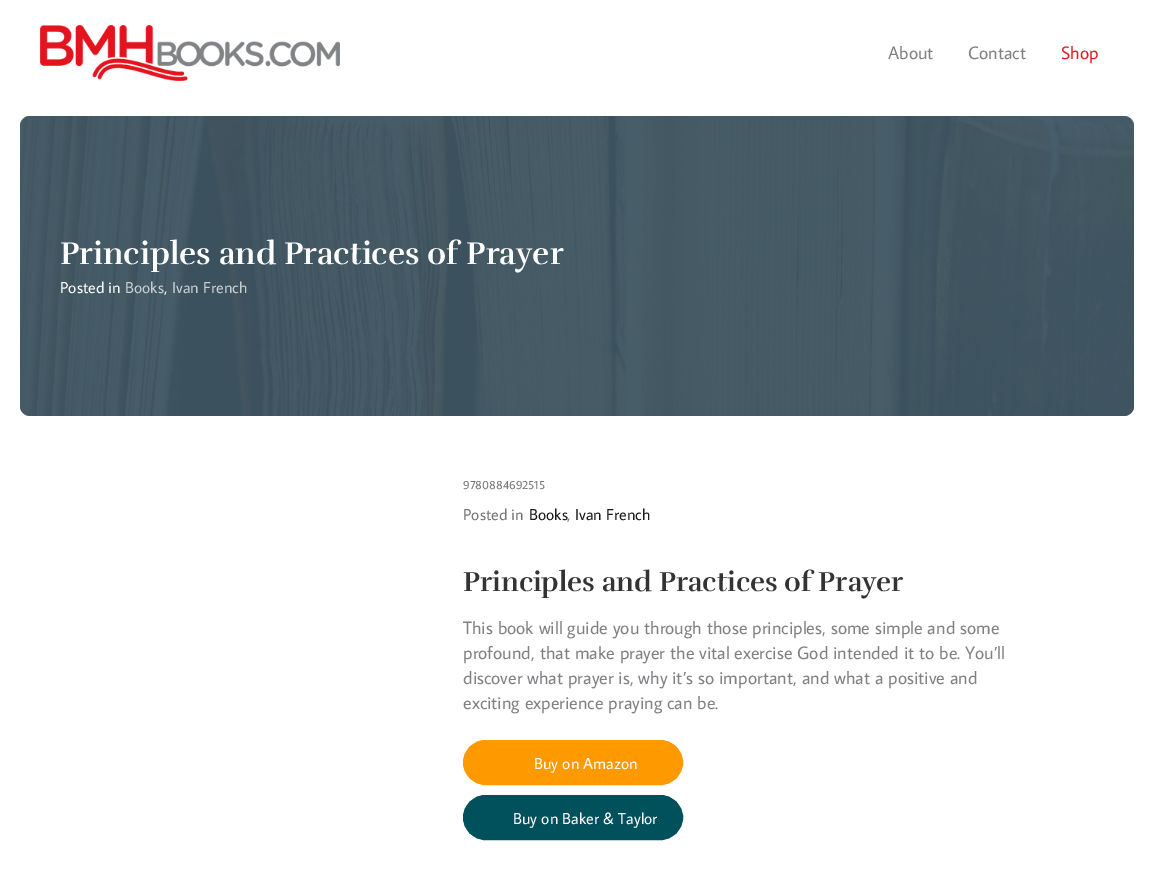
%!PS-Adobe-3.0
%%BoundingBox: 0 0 1154 887
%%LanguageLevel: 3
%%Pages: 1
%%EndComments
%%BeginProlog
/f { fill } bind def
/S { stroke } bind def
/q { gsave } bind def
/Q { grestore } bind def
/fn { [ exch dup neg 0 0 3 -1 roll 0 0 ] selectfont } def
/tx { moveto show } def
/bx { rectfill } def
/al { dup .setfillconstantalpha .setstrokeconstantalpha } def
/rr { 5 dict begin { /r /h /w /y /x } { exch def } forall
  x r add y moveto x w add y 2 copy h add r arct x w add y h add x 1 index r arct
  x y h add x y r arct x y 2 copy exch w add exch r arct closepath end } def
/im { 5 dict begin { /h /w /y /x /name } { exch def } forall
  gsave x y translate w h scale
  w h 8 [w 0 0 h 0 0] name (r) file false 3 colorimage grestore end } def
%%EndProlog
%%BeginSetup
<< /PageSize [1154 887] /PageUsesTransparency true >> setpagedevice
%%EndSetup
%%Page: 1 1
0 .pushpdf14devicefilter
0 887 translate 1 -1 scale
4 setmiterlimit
1 setgray
0 0 1154 887 bx
(image0.raw) 40 25 300 56 im
/AverageSans-Regular 18 fn
0.502 0.506 0.518 setrgbcolor
(About) 888 59 tx
(Contact) 968 59 tx
0.886 0.106 0.137 setrgbcolor
(Shop) 1061 59 tx
(image1.raw) 20 116 1114 300 im
0.95 al
0.243 0.337 0.388 setrgbcolor
20 116 1114 300 10 rr f
/Rufina-Bold 32 fn
1 al
1 setgray
(Principles and Practices of Prayer) 60 264 tx
/AverageSans-Regular 16 fn
(Posted in) 60 293 tx
0.78 0.804 0.816 setrgbcolor
(Books) 125 293 tx
1 setgray
(,) 164 293 tx
0.78 0.804 0.816 setrgbcolor
(Ivan French) 172 293 tx
/AverageSans-Regular 12 fn
0.459 setgray
(9780884692515) 463 489 tx
/AverageSans-Regular 16 fn
(Posted in) 463 520 tx
0.102 setgray
(Books) 529 520 tx
0.459 setgray
(,) 567 520 tx
0.102 setgray
(Ivan French) 575 520 tx
/Rufina-Bold 28 fn
0.2 setgray
(Principles and Practices of Prayer) 463 591 tx
/AverageSans-Regular 18 fn
0.502 0.506 0.518 setrgbcolor
(This book will guide you through those principles, some simple and some) 463 634 tx
(profound, that make prayer the vital exercise God intended it to be. You’ll) 463 659 tx
(discover what prayer is, why it’s so important, and what a positive and) 463 684 tx
(exciting experience praying can be.) 463 709 tx
1 0.6 0 setrgbcolor
463.5 740.5 219 44 22 rr q f Q
S
/AverageSans-Regular 16 fn
1 setgray
(Buy on Amazon) 534 769 tx
0.004 0.318 0.361 setrgbcolor
463.5 795.5 219 44 22 rr q f Q
S
1 setgray
(Buy on Baker & Taylor) 513 824 tx
.poppdf14devicefilter showpage
%%EOF
